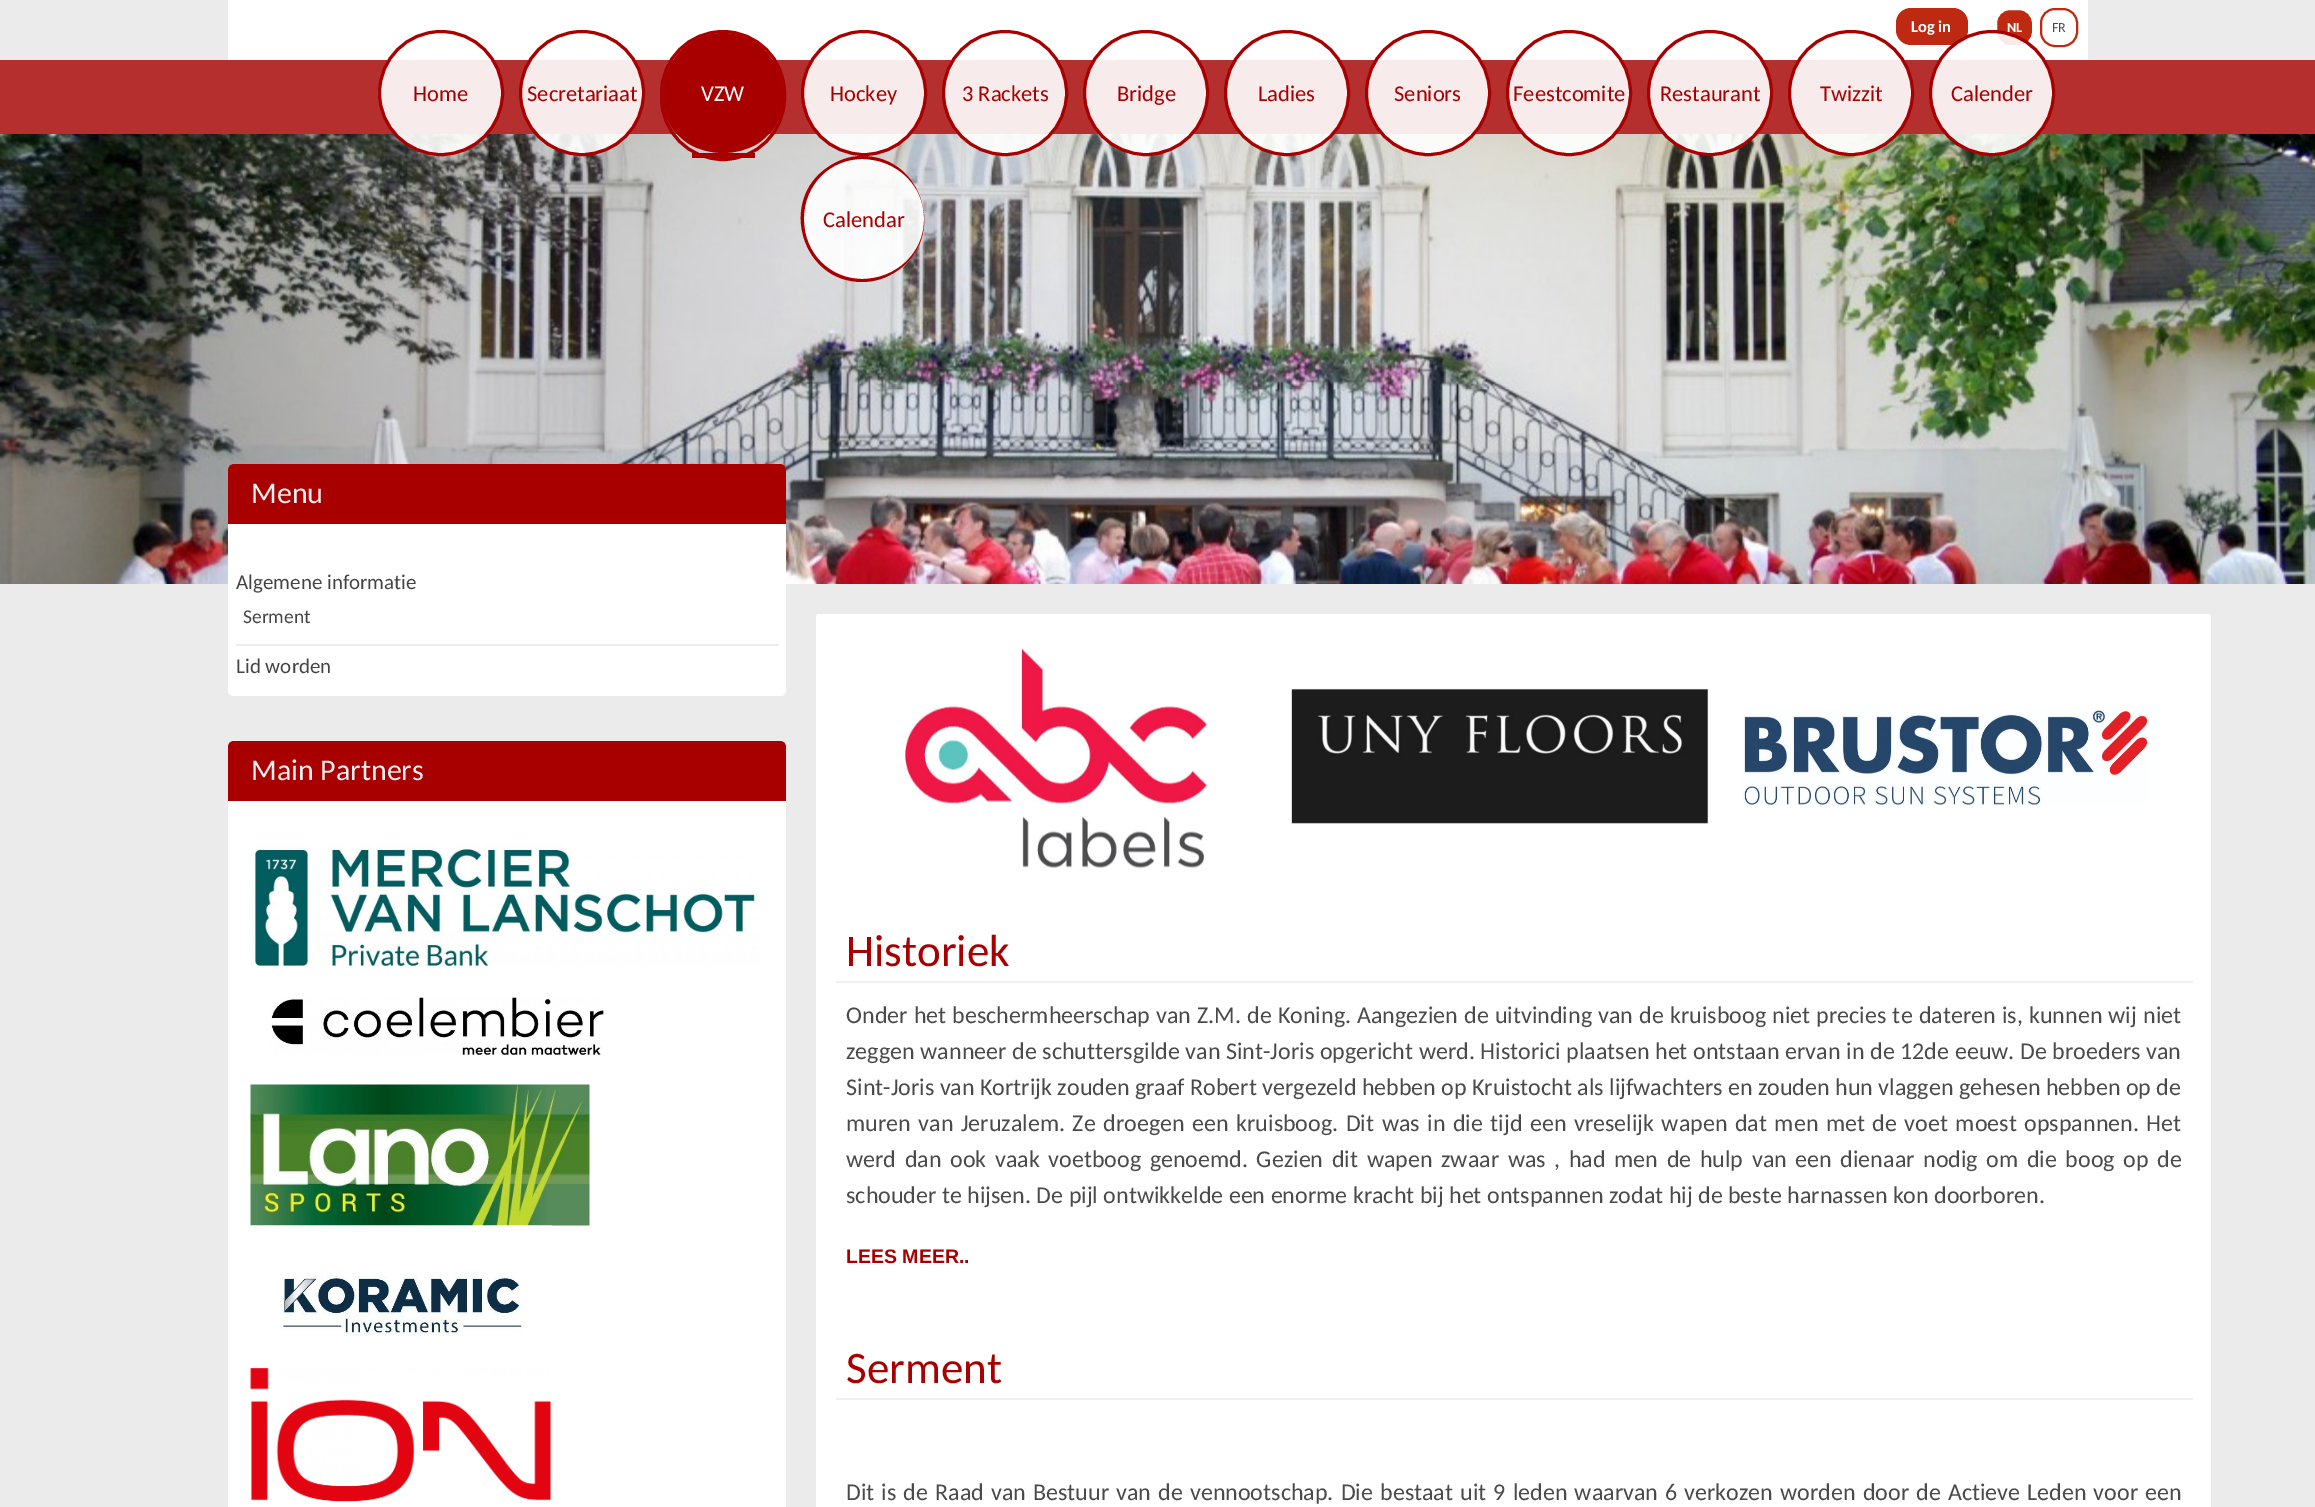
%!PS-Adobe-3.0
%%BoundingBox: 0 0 2315 1507
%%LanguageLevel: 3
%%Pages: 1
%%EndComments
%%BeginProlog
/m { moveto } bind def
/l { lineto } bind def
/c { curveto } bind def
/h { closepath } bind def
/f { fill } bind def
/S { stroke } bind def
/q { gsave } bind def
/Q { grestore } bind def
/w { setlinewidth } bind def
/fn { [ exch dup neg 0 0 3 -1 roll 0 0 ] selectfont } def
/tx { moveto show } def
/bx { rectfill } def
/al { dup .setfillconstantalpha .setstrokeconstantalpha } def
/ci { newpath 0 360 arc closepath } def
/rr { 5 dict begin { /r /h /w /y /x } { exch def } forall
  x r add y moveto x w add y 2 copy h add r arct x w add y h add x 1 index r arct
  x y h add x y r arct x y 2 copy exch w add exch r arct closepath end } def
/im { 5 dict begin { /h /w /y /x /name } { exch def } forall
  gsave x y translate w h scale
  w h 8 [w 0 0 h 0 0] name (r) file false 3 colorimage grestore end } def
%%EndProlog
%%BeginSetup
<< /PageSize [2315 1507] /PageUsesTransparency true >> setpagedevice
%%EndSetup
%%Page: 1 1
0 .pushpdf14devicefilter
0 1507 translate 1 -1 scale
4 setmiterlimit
0.922 setgray
0 0 2315 1507 bx
1 setgray
228 0 1860 60 bx
0.745 0.161 0.071 setrgbcolor
1896 8 72 37 15 rr f
/Carlito-Bold 16.5 fn
1 setgray
(Log in) 1911 32 tx
0.745 0.161 0.071 setrgbcolor
1996 9 37 37 14 rr q f Q
1 setgray
2 w
S
/Carlito-Bold 14 fn
(NL) 2007 32 tx
0.745 0.161 0.071 setrgbcolor
2041 9 36 37 14 rr S
/Carlito-Regular 14 fn
0.29 setgray
(FR) 2052 32 tx
0.714 0.184 0.184 setrgbcolor
0 60 2315 74 bx
(image0.raw) 0 134 2315 450 im
0.9 al
1 setgray
441 93 61.5 ci f
1 al
0.659 0 0 setrgbcolor
3 w
441 93 61.5 ci S
/Carlito-Regular 22.5 fn
(Home) 413 101 tx
0.9 al
1 setgray
582 93 61.5 ci f
1 al
0.659 0 0 setrgbcolor
582 93 61.5 ci S
(Secretariaat) 527 101 tx
723 33 m 782 33 806 113 757 144 c 747 150 735 153 723 153 c 711 153 699 150 689 144 c 640 113 664 33 723 33 c h f
661.5 31.5 123 128 61.5 rr S
692 153 63 5 bx
1 setgray
(VZW) 701 101 tx
0.9 al
864 93 61.5 ci f
1 al
0.659 0 0 setrgbcolor
864 93 61.5 ci S
(Hockey) 830 101 tx
0.9 al
1 setgray
1005 93 61.5 ci f
1 al
0.659 0 0 setrgbcolor
1005 93 61.5 ci S
(3 Rackets) 962 101 tx
0.9 al
1 setgray
1146 93 61.5 ci f
1 al
0.659 0 0 setrgbcolor
1146 93 61.5 ci S
(Bridge) 1117 101 tx
0.9 al
1 setgray
1287 93 61.5 ci f
1 al
0.659 0 0 setrgbcolor
1287 93 61.5 ci S
(Ladies) 1258 101 tx
0.9 al
1 setgray
1428 93 61.5 ci f
1 al
0.659 0 0 setrgbcolor
1428 93 61.5 ci S
(Seniors) 1394 101 tx
0.9 al
1 setgray
1569 93 61.5 ci f
1 al
0.659 0 0 setrgbcolor
1569 93 61.5 ci S
(Feestcomite) 1513 101 tx
0.9 al
1 setgray
1710 93 61.5 ci f
1 al
0.659 0 0 setrgbcolor
1710 93 61.5 ci S
(Restaurant) 1660 101 tx
0.9 al
1 setgray
1851 93 61.5 ci f
1 al
0.659 0 0 setrgbcolor
1851 93 61.5 ci S
(Twizzit) 1820 101 tx
0.9 al
1 setgray
1992 93 61.5 ci f
1 al
0.659 0 0 setrgbcolor
1992 93 61.5 ci S
(Calender) 1951 101 tx
0.9 al
1 setgray
801 156 123 126 61.5 rr f
1 al
0.659 0 0 setrgbcolor
862 156 m 924 156 947 238 897 271 c 887 278 875 282 862 282 c 801 282 778 200 828 167 c 838 160 850 156 862 156 c h 862 159 m 896 159 924 185 924 218 c 924 220 l 924 253 896 279 862 279 c 830 279 804 253 804 220 c 804 218 l 804 185 830 159 862 159 c h eofill
(Calendar) 823 227 tx
1 setgray
228 464 558 232 6 rr f
0.659 0 0 setrgbcolor
234 464 m 780 464 l 783.5 464 786 466.5 786 470 c 786 524 l 228 524 l 228 470 l 228 466.5 230.5 464 234 464 c h f
/Carlito-Regular 30 fn
0.961 0.941 0.941 setrgbcolor
(Menu) 251 503 tx
0.922 setgray
236 644 543 2 bx
/Carlito-Regular 21 fn
0.267 setgray
(Algemene informatie) 236 589 tx
/Carlito-Regular 19.5 fn
(Serment) 243 623 tx
/Carlito-Regular 21 fn
(Lid worden) 236 673 tx
1 setgray
228 741 558 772 6 rr f
0.659 0 0 setrgbcolor
234 741 m 780 741 l 783.5 741 786 743.5 786 747 c 786 801 l 228 801 l 228 747 l 228 743.5 230.5 741 234 741 c h f
/Carlito-Regular 30 fn
0.961 0.941 0.941 setrgbcolor
(Main Partners) 251 780 tx
(image1.raw) 250 844 509 123 im
(image2.raw) 271 997 333 58 im
(image3.raw) 250 1084 340 142 im
(image4.raw) 250 1225 302 112 im
(image5.raw) 250 1368 301 134 im
1 setgray
816 614 1395 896 3 rr f
(image6.raw) 904 648 306 221 im
(image7.raw) 1291 688 418 136 im
(image8.raw) 1743 709 406 96 im
0.941 setgray
836 981 1357 2 bx
/Carlito-Regular 45 fn
0.659 0 0 setrgbcolor
(Historiek) 846 966 tx
/Carlito-Regular 24 fn
0.29 setgray
846 1023 m 0.75 0 32 (Onder het beschermheerschap van Z.M. de Koning. Aangezien de uitvinding van de kruisboog niet precies te dateren is, kunnen wij niet) widthshow
846 1059 m 0.25 0 32 (zeggen wanneer de schuttersgilde van Sint-Joris opgericht werd. Historici plaatsen het ontstaan ervan in de 12de eeuw. De broeders van) widthshow
(Sint-Joris van Kortrijk zouden graaf Robert vergezeld hebben op Kruistocht als lijfwachters en zouden hun vlaggen gehesen hebben op de) 846 1095 tx
846 1131 m 2.1 0 32 (muren van Jeruzalem. Ze droegen een kruisboog. Dit was in die tijd een vreselijk wapen dat men met de voet moest opspannen. Het) widthshow
846 1167 m 3.2 0 32 (werd dan ook vaak voetboog genoemd. Gezien dit wapen zwaar was , had men de hulp van een dienaar nodig om die boog op de) widthshow
(schouder te hijsen. De pijl ontwikkelde een enorme kracht bij het ontspannen zodat hij de beste harnassen kon doorboren.) 846 1203 tx
/LiberationSans-Bold 19.5 fn
0.659 0 0 setrgbcolor
(LEES MEER..) 846 1263 tx
0.941 setgray
836 1398 1357 2 bx
/Carlito-Regular 45 fn
0.659 0 0 setrgbcolor
(Serment) 846 1383 tx
/Carlito-Regular 24 fn
0.29 setgray
846 1500 m 1.7 0 32 (Dit is de Raad van Bestuur van de vennootschap. Die bestaat uit 9 leden waarvan 6 verkozen worden door de Actieve Leden voor een) widthshow
.poppdf14devicefilter showpage
%%EOF
